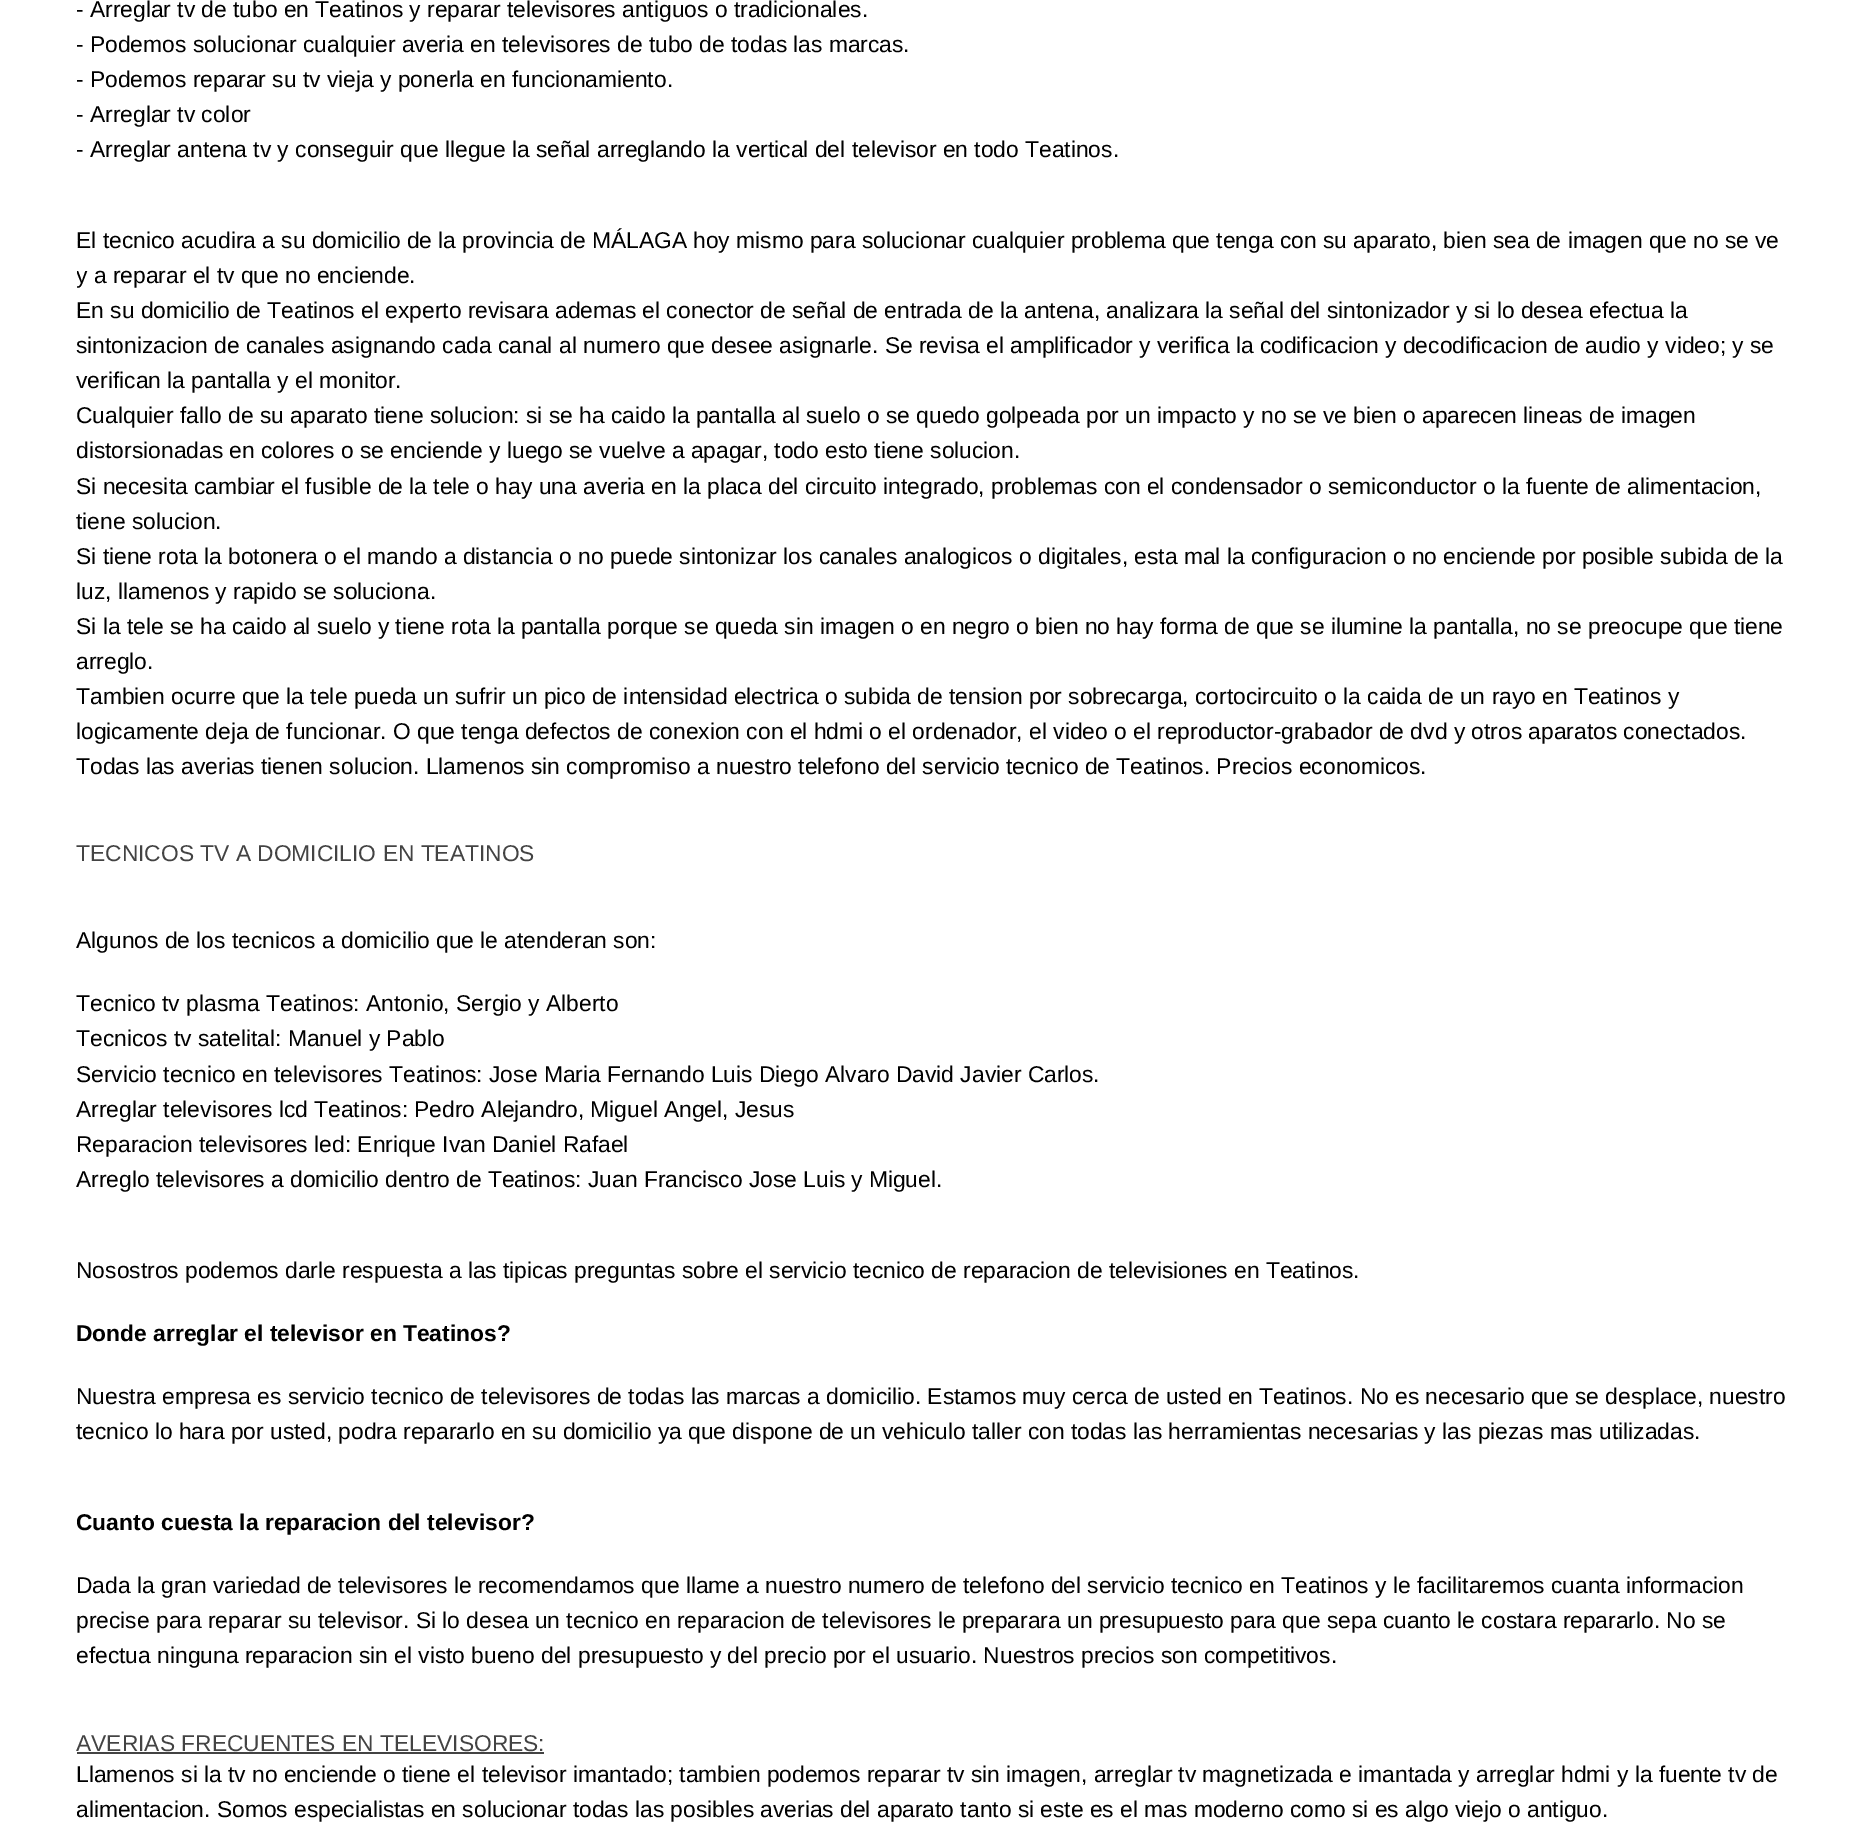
%!PS-Adobe-3.0
%%BoundingBox: 0 0 1866 1847
%%LanguageLevel: 3
%%Pages: 1
%%EndComments
%%BeginProlog
/q { gsave } bind def
/Q { grestore } bind def
/fn { [ exch dup neg 0 0 3 -1 roll 0 0 ] selectfont } def
/tx { moveto show } def
/bx { rectfill } def
%%EndProlog
%%BeginSetup
<< /PageSize [1866 1847] >> setpagedevice
%%EndSetup
%%Page: 1 1
0 1847 translate 1 -1 scale
4 setmiterlimit
1 setgray
0 0 1866 1847 bx
/LiberationSans-Regular 22.8 fn
0 setgray
(- Arreglar tv de tubo en Teatinos y reparar televisores antiguos o tradicionales.) 76 17 tx
(- Podemos solucionar cualquier averia en televisores de tubo de todas las marcas.) 76 52 tx
(- Podemos reparar su tv vieja y ponerla en funcionamiento.) 76 87 tx
(- Arreglar tv color) 76 122 tx
(- Arreglar antena tv y conseguir que llegue la señal arreglando la vertical del televisor en todo Teatinos.) 76 157 tx
(El tecnico acudira a su domicilio de la provincia de MÁLAGA hoy mismo para solucionar cualquier problema que tenga con su aparato, bien sea de imagen que no se ve) 76 248 tx
q
77 0 1715 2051 rectclip
(y a reparar el tv que no enciende.) 76 283 tx
Q
(En su domicilio de Teatinos el experto revisara ademas el conector de señal de entrada de la antena, analizara la señal del sintonizador y si lo desea efectua la) 76 318 tx
(sintonizacion de canales asignando cada canal al numero que desee asignarle. Se revisa el amplificador y verifica la codificacion y decodificacion de audio y video; y se) 76 353 tx
(verifican la pantalla y el monitor.) 76 388 tx
(Cualquier fallo de su aparato tiene solucion: si se ha caido la pantalla al suelo o se quedo golpeada por un impacto y no se ve bien o aparecen lineas de imagen) 76 423 tx
(distorsionadas en colores o se enciende y luego se vuelve a apagar, todo esto tiene solucion.) 76 458 tx
(Si necesita cambiar el fusible de la tele o hay una averia en la placa del circuito integrado, problemas con el condensador o semiconductor o la fuente de alimentacion,) 76 494 tx
(tiene solucion.) 76 529 tx
(Si tiene rota la botonera o el mando a distancia o no puede sintonizar los canales analogicos o digitales, esta mal la configuracion o no enciende por posible subida de la) 76 564 tx
(luz, llamenos y rapido se soluciona.) 76 599 tx
(Si la tele se ha caido al suelo y tiene rota la pantalla porque se queda sin imagen o en negro o bien no hay forma de que se ilumine la pantalla, no se preocupe que tiene) 76 634 tx
(arreglo.) 76 669 tx
(Tambien ocurre que la tele pueda un sufrir un pico de intensidad electrica o subida de tension por sobrecarga, cortocircuito o la caida de un rayo en Teatinos y) 76 704 tx
(logicamente deja de funcionar. O que tenga defectos de conexion con el hdmi o el ordenador, el video o el reproductor-grabador de dvd y otros aparatos conectados.) 76 739 tx
(Todas las averias tienen solucion. Llamenos sin compromiso a nuestro telefono del servicio tecnico de Teatinos. Precios economicos.) 76 774 tx
0.263 setgray
(TECNICOS TV A DOMICILIO EN TEATINOS) 76 861 tx
0 setgray
(Algunos de los tecnicos a domicilio que le atenderan son:) 76 948 tx
(Tecnico tv plasma Teatinos: Antonio, Sergio y Alberto) 76 1011 tx
(Tecnicos tv satelital: Manuel y Pablo) 76 1046 tx
(Servicio tecnico en televisores Teatinos: Jose Maria Fernando Luis Diego Alvaro David Javier Carlos.) 76 1082 tx
(Arreglar televisores lcd Teatinos: Pedro Alejandro, Miguel Angel, Jesus) 76 1117 tx
(Reparacion televisores led: Enrique Ivan Daniel Rafael) 76 1152 tx
(Arreglo televisores a domicilio dentro de Teatinos: Juan Francisco Jose Luis) 76 1187 tx
(y Miguel.) 851 1187 tx
(Nosostros podemos darle respuesta a las tipicas preguntas sobre el servicio tecnico de reparacion de televisiones en Teatinos.) 76 1278 tx
/LiberationSans-Bold 22.8 fn
(Donde arreglar el televisor en Teatinos?) 76 1341 tx
/LiberationSans-Regular 22.8 fn
(Nuestra empresa es servicio tecnico de televisores de todas las marcas a domicilio. Estamos muy cerca de usted en Teatinos. No es necesario que se desplace, nuestro) 76 1404 tx
(tecnico lo hara por usted, podra repararlo en su domicilio ya que dispone de un vehiculo taller con todas las herramientas necesarias y las piezas mas utilizadas.) 76 1439 tx
/LiberationSans-Bold 22.8 fn
(Cuanto cuesta la reparacion del televisor?) 76 1530 tx
/LiberationSans-Regular 22.8 fn
(Dada la gran variedad de televisores le recomendamos que llame a nuestro numero de telefono del servicio tecnico en Teatinos y le facilitaremos cuanta informacion) 76 1593 tx
(precise para reparar su televisor. Si lo desea un tecnico) 76 1628 tx
(en reparacion de televisores le preparara un presupuesto para que sepa cuanto le costara repararlo. No se) 645 1628 tx
(efectua ninguna reparacion sin el visto bueno del presupuesto y del precio por el usuario. Nuestros precios son competitivos.) 76 1663 tx
0.263 setgray
(AVERIAS FRECUENTES EN TELEVISORES:) 76 1751 tx
77 1752 467 2 bx
0 setgray
(Llamenos si la tv no enciende o tiene el televisor imantado; tambien podemos reparar tv sin imagen, arreglar tv magnetizada e imantada y arreglar hdmi y la fuente tv de) 76 1782 tx
(alimentacion. Somos especialistas en solucionar todas las posibles averias del aparato tanto si este es el mas moderno como si es algo viejo o antiguo.) 76 1817 tx
showpage
%%EOF
